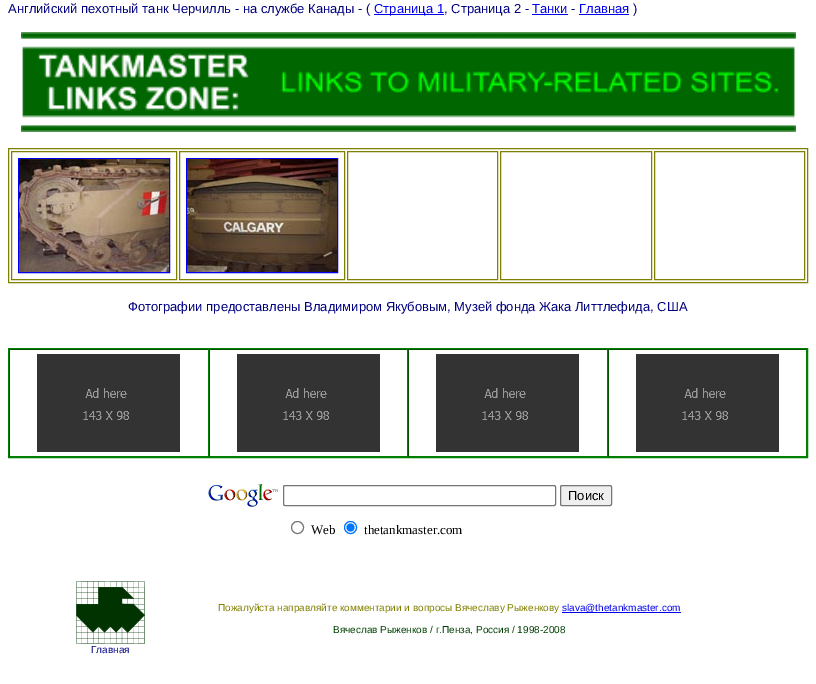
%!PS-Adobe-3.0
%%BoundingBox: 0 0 816 684
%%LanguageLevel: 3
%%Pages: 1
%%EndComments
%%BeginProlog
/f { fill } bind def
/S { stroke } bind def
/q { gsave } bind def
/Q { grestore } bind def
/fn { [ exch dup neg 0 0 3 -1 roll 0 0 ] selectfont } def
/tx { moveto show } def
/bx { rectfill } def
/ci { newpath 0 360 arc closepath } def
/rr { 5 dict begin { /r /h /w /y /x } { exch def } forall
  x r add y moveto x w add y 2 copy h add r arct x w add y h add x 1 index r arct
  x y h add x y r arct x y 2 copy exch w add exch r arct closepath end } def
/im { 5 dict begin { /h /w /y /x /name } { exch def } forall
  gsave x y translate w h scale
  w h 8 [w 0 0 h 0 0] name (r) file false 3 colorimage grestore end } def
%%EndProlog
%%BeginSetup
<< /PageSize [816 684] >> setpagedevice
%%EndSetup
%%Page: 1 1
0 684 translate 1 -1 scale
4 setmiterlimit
1 setgray
0 0 816 684 bx
/LiberationSans-Regular 13 fn
0 0 0.502 setrgbcolor
(Английский пехотный танк Черчилль - на службе Канады - \() 8 13 tx
0 0 0.933 setrgbcolor
374 14 70 1 bx
(Страница 1) 374 13 tx
0 0 0.502 setrgbcolor
(, Страница 2 -) 444 13 tx
0 0 0.933 setrgbcolor
(Танки) 532 13 tx
532 14 36 1 bx
0 0 0.502 setrgbcolor
(-) 571 13 tx
0 0 0.933 setrgbcolor
(Главная) 579 13 tx
579 14 50 1 bx
0 0 0.502 setrgbcolor
(\)) 633 13 tx
(image0.raw) 21 32 775 100 im
0.502 0.502 0 setrgbcolor
8.5 148.5 799 134 rectstroke
11.5 151.5 165 128 rectstroke
0 0 0.933 setrgbcolor
18.5 158.5 151 114 rectstroke
(image1.raw) 19 159 150 113 im
0.502 0.502 0 setrgbcolor
179.5 151.5 165 128 rectstroke
0 0 0.933 setrgbcolor
186.5 158.5 151 114 rectstroke
(image2.raw) 187 159 150 113 im
0.502 0.502 0 setrgbcolor
347.5 151.5 150 128 rectstroke
500.5 151.5 151 128 rectstroke
654.5 151.5 150 128 rectstroke
0 0 0.502 setrgbcolor
(Фотографии предоставлены Владимиром Якубовым, Музей фонда Жака Литтлефида, США) 128 311 tx
0 0.502 0 setrgbcolor
8.5 348.5 799 109 rectstroke
0 0.333 0 setrgbcolor
9 349 798 1 bx
0 0.502 0 setrgbcolor
208 349 1 108 bx
9 456 200 1 bx
0 0.333 0 setrgbcolor
9 349 1 108 bx
(image3.raw) 37 354 143 98 im
0 0.502 0 setrgbcolor
407 349 1 108 bx
209 456 199 1 bx
0 0.333 0 setrgbcolor
209 349 1 108 bx
(image3.raw) 237 354 143 98 im
0 0.502 0 setrgbcolor
607 349 1 108 bx
408 456 200 1 bx
0 0.333 0 setrgbcolor
408 349 1 108 bx
(image3.raw) 436 354 143 98 im
0 0.502 0 setrgbcolor
806 349 1 108 bx
608 456 199 1 bx
0 0.333 0 setrgbcolor
608 349 1 108 bx
(image3.raw) 636 354 143 98 im
(image4.raw) 208 484 70 23 im
0.463 setgray
283.5 485.5 272 20 1.5 rr S
0.937 setgray
560.5 485.5 51 20 1.5 rr q f Q
0.463 setgray
S
0 setgray
(Поиск) 568 500 tx
0.463 setgray
297.5 527.5 6 ci S
/LiberationSerif-Regular 13 fn
0 setgray
(Web) 311 534 tx
0 0.459 1 setrgbcolor
350.5 527.5 6 ci S
350.5 527.5 4 ci f
0 setgray
(thetankmaster.com) 364 534 tx
/LiberationSans-Regular 10 fn
0.502 0.502 0 setrgbcolor
(Пожалуйста направляйте комментарии и вопросы Вячеславу Рыженкову) 218 611 tx
0 0 0.933 setrgbcolor
562 612 119 1 bx
(slava@thetankmaster.com) 562 611 tx
0 0.251 0 setrgbcolor
(Вячеслав Рыженков / г.Пенза, Россия / 1998-2008) 333 633 tx
(image5.raw) 76 581 69 63 im
0 0 0.502 setrgbcolor
(Главная) 91 653 tx
showpage
%%EOF
